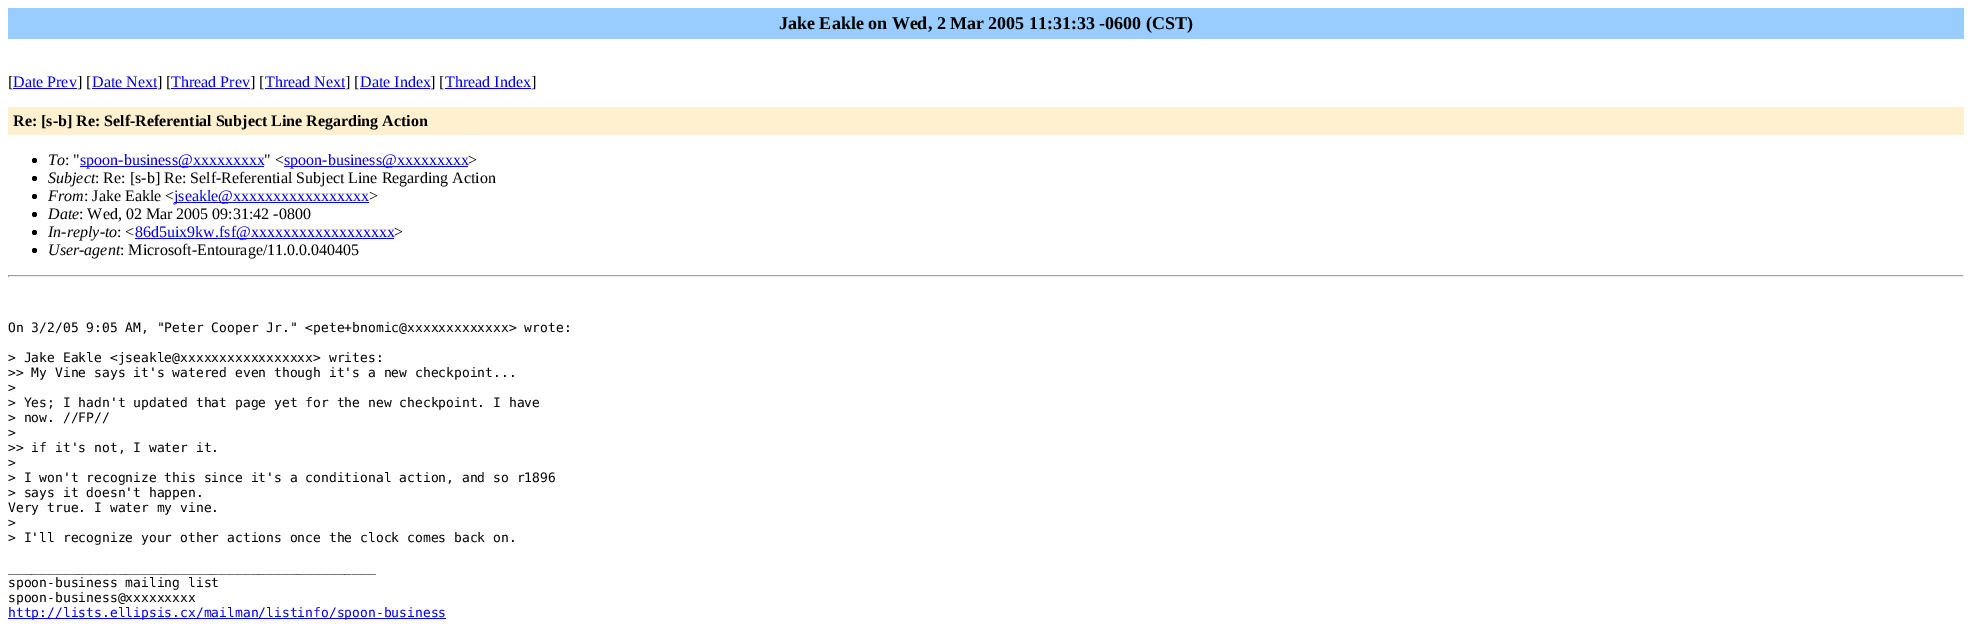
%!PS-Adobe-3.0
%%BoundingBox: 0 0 1972 627
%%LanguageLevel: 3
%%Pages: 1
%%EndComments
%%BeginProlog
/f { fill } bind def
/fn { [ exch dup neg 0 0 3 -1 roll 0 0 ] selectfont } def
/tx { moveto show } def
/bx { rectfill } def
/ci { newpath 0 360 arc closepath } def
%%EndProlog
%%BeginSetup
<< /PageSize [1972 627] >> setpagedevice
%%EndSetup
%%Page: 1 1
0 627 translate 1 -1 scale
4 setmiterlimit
1 setgray
0 0 1972 627 bx
0.6 0.8 1 setrgbcolor
8 8 1956 31 bx
/LiberationSerif-Bold 18 fn
0 setgray
(Jake Eakle on Wed, 2 Mar 2005 11:31:33 -0600 \(CST\)) 779 29 tx
/LiberationSerif-Regular 16 fn
([) 8 87 tx
0 0 0.933 setrgbcolor
(Date Prev) 13 87 tx
13 88 64 1 bx
0 setgray
(] [) 77 87 tx
0 0 0.933 setrgbcolor
(Date Next) 92 87 tx
92 88 65 1 bx
0 setgray
(] [) 157 87 tx
0 0 0.933 setrgbcolor
(Thread Prev) 171 87 tx
171 88 79 1 bx
0 setgray
(] [) 250 87 tx
0 0 0.933 setrgbcolor
(Thread Next) 265 87 tx
265 88 80 1 bx
0 setgray
(] [) 345 87 tx
0 0 0.933 setrgbcolor
(Date Index) 360 87 tx
360 88 70 1 bx
0 setgray
(] [) 430 87 tx
0 0 0.933 setrgbcolor
(Thread Index) 445 87 tx
445 88 86 1 bx
0 setgray
(]) 531 87 tx
1 0.941 0.816 setrgbcolor
8 107 1956 28 bx
/LiberationSerif-Bold 16 fn
0 setgray
(Re: [s-b] Re: Self-Referential Subject Line Regarding Action) 13 126 tx
34.5 160.5 2.5 ci f
/LiberationSerif-Italic 16 fn
(To) 48 165 tx
/LiberationSerif-Regular 16 fn
(: ") 65 165 tx
0 0 0.933 setrgbcolor
80 166 184 1 bx
(spoon-business@xxxxxxxxx) 80 165 tx
0 setgray
(" <) 264 165 tx
0 0 0.933 setrgbcolor
284 166 184 1 bx
(spoon-business@xxxxxxxxx) 284 165 tx
0 setgray
(>) 468 165 tx
34.5 178.5 2.5 ci f
/LiberationSerif-Italic 16 fn
(Subject) 48 183 tx
/LiberationSerif-Regular 16 fn
(: Re: [s-b] Re: Self-Referential Subject Line Regarding Action) 95 183 tx
34.5 196.5 2.5 ci f
/LiberationSerif-Italic 16 fn
(From) 48 201 tx
/LiberationSerif-Regular 16 fn
(: Jake Eakle <) 84 201 tx
0 0 0.933 setrgbcolor
174 202 195 1 bx
(jseakle@xxxxxxxxxxxxxxxxx) 174 201 tx
0 setgray
(>) 369 201 tx
34.5 214.5 2.5 ci f
/LiberationSerif-Italic 16 fn
(Date) 48 219 tx
/LiberationSerif-Regular 16 fn
(: Wed, 02 Mar 2005 09:31:42 -0800) 79 219 tx
34.5 232.5 2.5 ci f
/LiberationSerif-Italic 16 fn
(In-reply-to) 48 237 tx
/LiberationSerif-Regular 16 fn
(: <) 117 237 tx
0 0 0.933 setrgbcolor
135 238 259 1 bx
(86d5uix9kw.fsf@xxxxxxxxxxxxxxxxxx) 135 237 tx
0 setgray
(>) 394 237 tx
34.5 250.5 2.5 ci f
/LiberationSerif-Italic 16 fn
(User-agent) 48 255 tx
/LiberationSerif-Regular 16 fn
(: Microsoft-Entourage/11.0.0.040405) 120 255 tx
0.624 setgray
8 275 1956 1 bx
0.933 setgray
1963 275 1 2 bx
8 276 1956 1 bx
0.624 setgray
8 275 1 2 bx
/DejaVuSansMono-Regular 13 fn
0 setgray
(On 3/2/05 9:05 AM, "Peter Cooper Jr." <pete+bnomic@xxxxxxxxxxxxx> wrote:) 8 332 tx
(> Jake Eakle <jseakle@xxxxxxxxxxxxxxxxx> writes:) 8 362 tx
(>> My Vine says it's watered even though it's a new checkpoint...) 8 377 tx
(>) 8 392 tx
(> Yes; I hadn't updated that page yet for the new checkpoint. I have) 8 407 tx
(> now. //FP//) 8 422 tx
(>) 8 437 tx
(>> if it's not, I water it.) 8 452 tx
(>) 8 467 tx
(> I won't recognize this since it's a conditional action, and so r1896) 8 482 tx
(> says it doesn't happen.) 8 497 tx
(Very true. I water my vine.) 8 512 tx
(>) 8 527 tx
(> I'll recognize your other actions once the clock comes back on.) 8 542 tx
(_______________________________________________) 8 572 tx
(spoon-business mailing list) 8 587 tx
(spoon-business@xxxxxxxxx) 8 602 tx
0 0 0.933 setrgbcolor
8 618 438 1 bx
(http://lists.ellipsis.cx/mailman/listinfo/spoon-business) 8 617 tx
showpage
%%EOF
